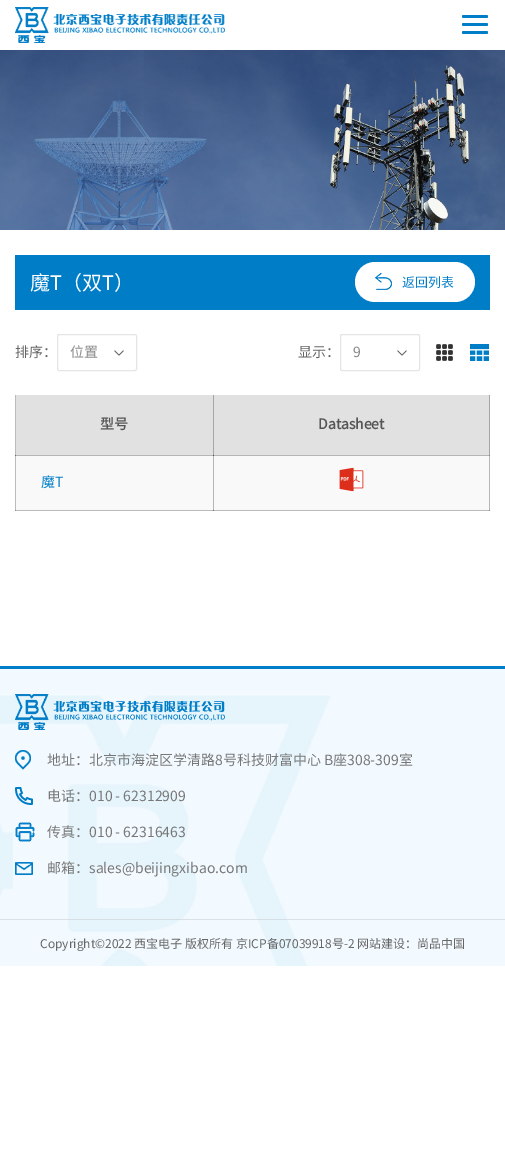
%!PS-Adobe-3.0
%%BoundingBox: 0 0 505 1176
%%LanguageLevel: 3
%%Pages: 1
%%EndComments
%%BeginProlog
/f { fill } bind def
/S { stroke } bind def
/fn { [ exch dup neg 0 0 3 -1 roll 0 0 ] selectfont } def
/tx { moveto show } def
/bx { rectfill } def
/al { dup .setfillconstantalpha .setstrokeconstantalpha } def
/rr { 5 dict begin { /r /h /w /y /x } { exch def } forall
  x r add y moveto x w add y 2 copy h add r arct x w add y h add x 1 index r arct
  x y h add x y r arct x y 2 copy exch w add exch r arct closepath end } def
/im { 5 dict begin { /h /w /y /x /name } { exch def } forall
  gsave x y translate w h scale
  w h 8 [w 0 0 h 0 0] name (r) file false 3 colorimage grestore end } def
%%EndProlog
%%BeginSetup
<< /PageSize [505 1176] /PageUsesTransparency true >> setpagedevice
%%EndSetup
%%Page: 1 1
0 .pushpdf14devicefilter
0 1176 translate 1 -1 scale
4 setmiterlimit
1 setgray
0 0 505 1176 bx
0.733 setgray
15 395 1 116 bx
0.412 setgray
15 455 1 1 bx
0.733 setgray
15 510 475 1 bx
0.545 setgray
15 510 1 1 bx
0.412 setgray
213 510 1 1 bx
0.545 setgray
489 510 1 1 bx
(image0.raw) 15 7 210 36 im
0 0.49 0.78 setrgbcolor
462 15 26 3 1.5 rr f
462 23 26 3 1.5 rr f
462 31 26 3 1.5 rr f
(image1.raw) 0 50 505 180 im
15 255 475 55 bx
/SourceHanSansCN-Regular 20 fn
1 setgray
(魔T（双T）) 30 290 tx
355 262 120 40 20 rr f
(image2.raw) 375 273 17 17 im
/SourceHanSansCN-Regular 13 fn
0 0.49 0.78 setrgbcolor
(返回列表) 402 287 tx
/SourceHanSansCN-Regular 14 fn
0.4 setgray
(排序：) 15 357 tx
(image3.raw) 114 350 10 6 im
0.898 setgray
57.5 334.5 79 36 1.5 rr S
0.533 setgray
(位置) 70 357 tx
0.4 setgray
(显示：) 298 357 tx
(image3.raw) 397 350 10 6 im
0.898 setgray
340.5 334.5 79 36 1.5 rr S
0.533 setgray
(9) 353 357 tx
(image4.raw) 436 344 17 17 im
(image5.raw) 470 344 19 17 im
0.882 setgray
16 395 197 60 bx
/SourceHanSansCN-Bold 14 fn
0.333 setgray
(型号) 100 429 tx
0.882 setgray
214 395 275 60 bx
0.651 setgray
213 395 1 60 bx
489 395 1 60 bx
0.333 setgray
(Datasheet) 318 429 tx
0.976 setgray
16 456 473 54 bx
0.714 setgray
16 455 474 1 bx
213 455 1 55 bx
0.314 setgray
213 455 1 1 bx
0.714 setgray
489 455 1 55 bx
0.533 setgray
489 455 1 1 bx
/SourceHanSansCN-Regular 14 fn
0 0.49 0.78 setrgbcolor
(魔T) 41 487 tx
(image6.raw) 339 467 25 25 im
(image7.raw) 0 669 505 297 im
0 666 505 3 bx
0.3 al
0.667 setgray
0 919 505 1 bx
1 al
(image8.raw) 15 694 210 36 im
(image9.raw) 15 750 16 20 im
0.467 setgray
(地址：北京市海淀区学清路8号科技财富中心 B座308-309室) 47 765 tx
(image10.raw) 15 787 18 18 im
(电话：010 - 62312909) 47 801 tx
(image11.raw) 15 822 20 20 im
(传真：010 - 62316463) 47 837 tx
(image12.raw) 15 862 18 13 im
(邮箱：sales@beijingxibao.com) 47 873 tx
/SourceHanSansCN-Regular 12 fn
0.4 setgray
(Copyright©2022 西宝电子 版权所有 京ICP备07039918号-2 网站建设：尚品中国) 40 948 tx
.poppdf14devicefilter showpage
%%EOF
